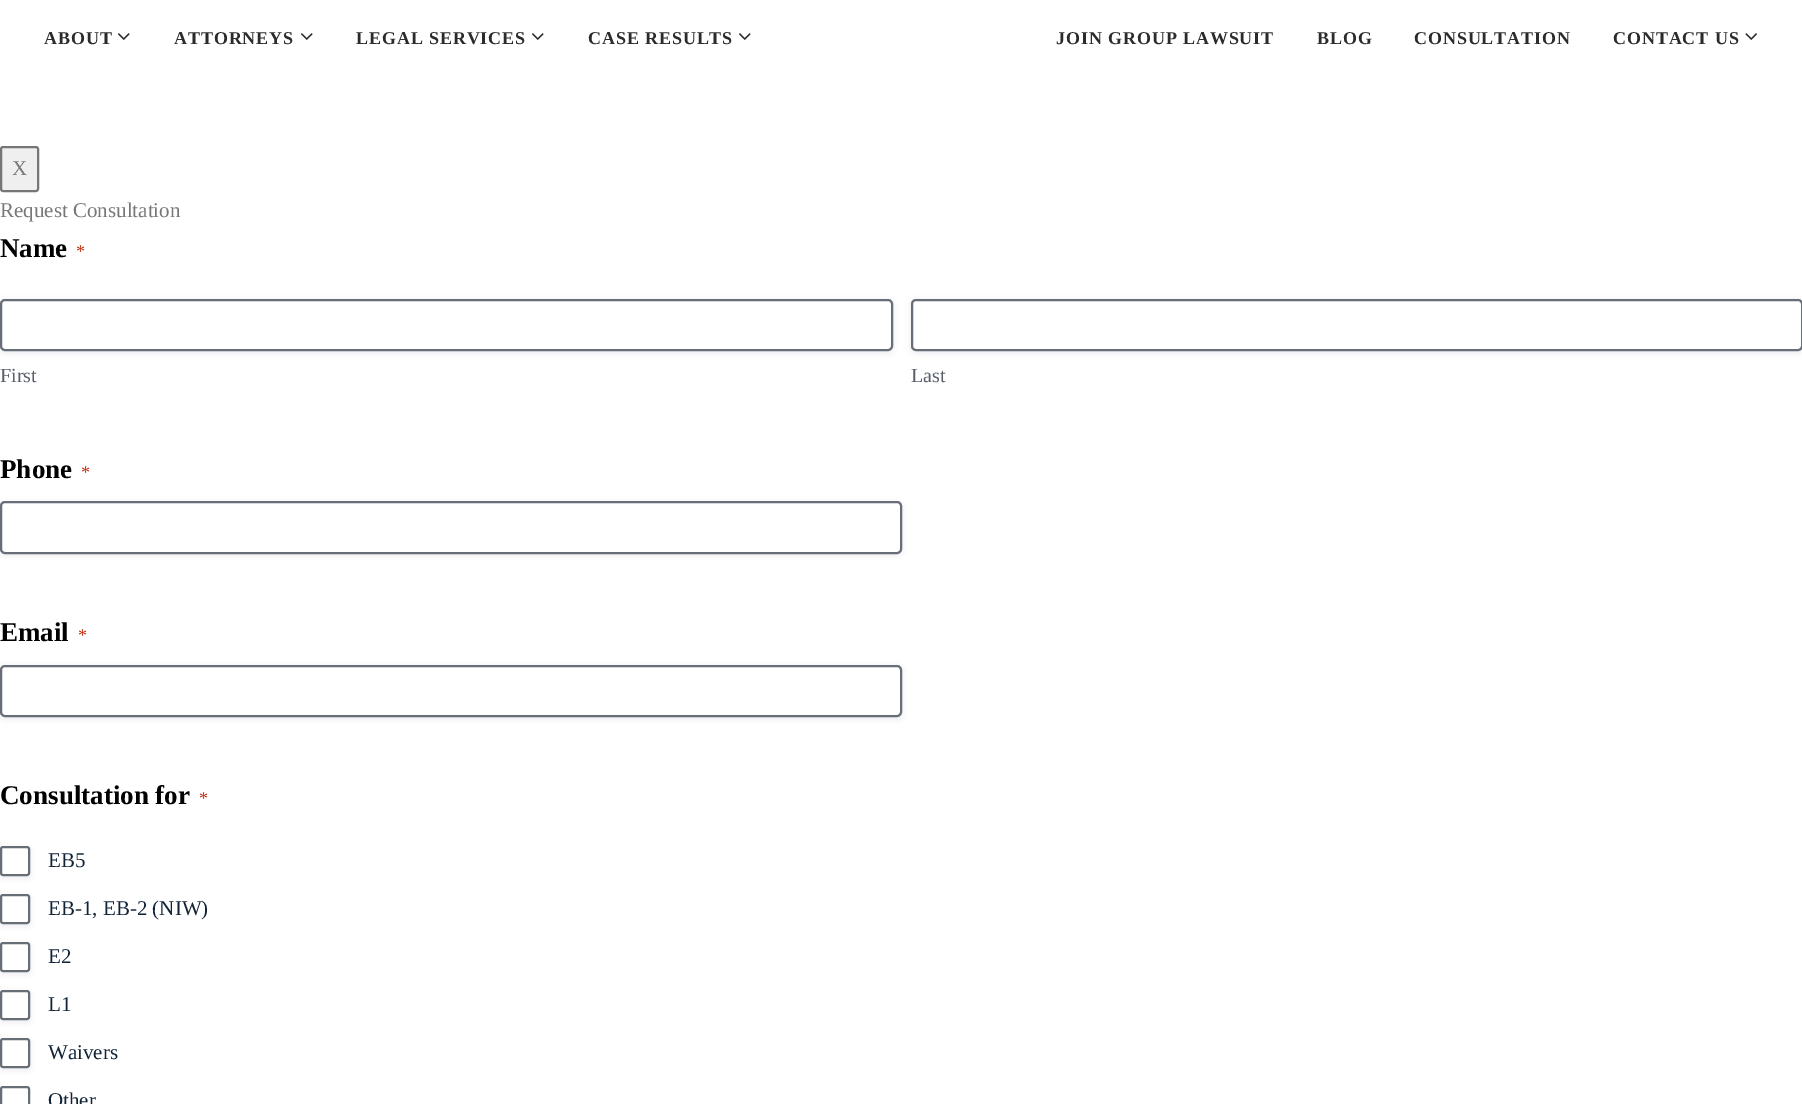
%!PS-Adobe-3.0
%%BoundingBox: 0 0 1802 1104
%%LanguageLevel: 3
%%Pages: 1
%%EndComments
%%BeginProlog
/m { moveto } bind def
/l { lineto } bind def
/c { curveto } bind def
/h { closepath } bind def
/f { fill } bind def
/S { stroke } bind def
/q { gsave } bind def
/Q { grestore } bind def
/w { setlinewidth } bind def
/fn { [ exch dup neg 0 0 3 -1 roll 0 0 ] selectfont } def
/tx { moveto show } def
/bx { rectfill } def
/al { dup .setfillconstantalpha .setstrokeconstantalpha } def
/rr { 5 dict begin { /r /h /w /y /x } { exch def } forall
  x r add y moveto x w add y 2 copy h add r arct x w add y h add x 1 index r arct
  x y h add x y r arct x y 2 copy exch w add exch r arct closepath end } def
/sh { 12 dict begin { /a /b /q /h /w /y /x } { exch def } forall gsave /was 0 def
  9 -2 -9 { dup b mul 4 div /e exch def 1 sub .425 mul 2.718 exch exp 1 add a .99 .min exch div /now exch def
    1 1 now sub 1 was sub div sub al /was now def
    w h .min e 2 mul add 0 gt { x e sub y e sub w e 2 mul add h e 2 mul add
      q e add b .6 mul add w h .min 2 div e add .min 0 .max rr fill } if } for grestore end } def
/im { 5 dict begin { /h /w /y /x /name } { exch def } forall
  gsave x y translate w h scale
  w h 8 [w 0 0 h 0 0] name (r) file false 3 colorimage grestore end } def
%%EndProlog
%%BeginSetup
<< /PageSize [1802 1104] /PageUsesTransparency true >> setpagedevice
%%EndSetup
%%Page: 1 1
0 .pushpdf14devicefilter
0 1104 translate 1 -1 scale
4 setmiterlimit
1 setgray
0 0 1802 1104 bx
/LiberationSerif-Bold 18 fn
0.169 setgray
44 44 m 0.9 0 (ABOUT) ashow
(image0.raw) 118 33 12 7 im
174 44 m 0.9 0 (ATTORNEYS) ashow
(image0.raw) 301 33 12 7 im
356 44 m 0.9 0 (LEGAL SERVICES) ashow
(image0.raw) 532 33 12 7 im
588 44 m 0.9 0 (CASE RESULTS) ashow
(image0.raw) 739 33 12 7 im
1056 44 m 0.9 0 (JOIN GROUP LAWSUIT) ashow
1317 44 m 0.9 0 (BLOG) ashow
1414 44 m 0.9 0 (CONSULTATION) ashow
1613 44 m 0.9 0 (CONTACT US) ashow
(image1.raw) 1745 33 12 7 im
0.937 setgray
1 147 37 44 2 rr q f Q
0.463 setgray
2 w
S
/LiberationSerif-Regular 21 fn
0.467 setgray
(X) 12 175 tx
(Request Consultation) 0 217 tx
/LiberationSerif-Bold 27 fn
0 setgray
(Name) 0 257 tx
/LiberationSerif-Regular 18 fn
0.753 0.169 0.039 setrgbcolor
(*) 76 257 tx
0.071 0.098 0.38 setrgbcolor
0 300 893 53 5 3 0.08 sh
1 setgray
1 300 891 50 4 rr q f Q
0.408 0.431 0.467 setrgbcolor
S
/LiberationSerif-Regular 20 fn
0.345 0.369 0.416 setrgbcolor
(First) 0 382 tx
q
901 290 m 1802 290 l 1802 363 l 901 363 l h 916 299 m 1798 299 l 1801 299 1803 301 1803 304 c 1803 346 l 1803 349 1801 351 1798 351 c 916 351 l 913 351 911 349 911 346 c 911 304 l 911 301 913 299 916 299 c h eoclip newpath
0.071 0.098 0.38 setrgbcolor
911 300 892 53 5 3 0.08 sh
Q
0.408 0.431 0.467 setrgbcolor
912 300 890 50 4 rr S
0.345 0.369 0.416 setrgbcolor
(Last) 911 382 tx
/LiberationSerif-Bold 27 fn
0 setgray
(Phone) 0 478 tx
/LiberationSerif-Regular 18 fn
0.753 0.169 0.039 setrgbcolor
(*) 81 478 tx
0.071 0.098 0.38 setrgbcolor
0 503 902 52 5 3 0.08 sh
1 setgray
1 502 900 51 4 rr q f Q
0.408 0.431 0.467 setrgbcolor
S
/LiberationSerif-Bold 27 fn
0 setgray
(Email) 0 641 tx
/LiberationSerif-Regular 18 fn
0.753 0.169 0.039 setrgbcolor
(*) 78 641 tx
0.071 0.098 0.38 setrgbcolor
0 666 902 53 5 3 0.08 sh
1 setgray
1 666 900 50 4 rr q f Q
0.408 0.431 0.467 setrgbcolor
S
/LiberationSerif-Bold 27 fn
0 setgray
(Consultation for) 0 804 tx
/LiberationSerif-Regular 18 fn
0.753 0.169 0.039 setrgbcolor
(*) 199 804 tx
0.071 0.098 0.38 setrgbcolor
0 848 30 30 3 3 0.08 sh
1 setgray
1 847 28 28 2 rr q f Q
0.408 0.431 0.467 setrgbcolor
S
/LiberationSerif-Regular 21 fn
0.067 0.137 0.216 setrgbcolor
(EB5) 48 867 tx
0.071 0.098 0.38 setrgbcolor
0 896 30 30 3 3 0.08 sh
1 setgray
1 895 28 28 2 rr q f Q
0.408 0.431 0.467 setrgbcolor
S
0.067 0.137 0.216 setrgbcolor
(EB-1, EB-2 \(NIW\)) 48 915 tx
0.071 0.098 0.38 setrgbcolor
0 944 30 30 3 3 0.08 sh
1 setgray
1 943 28 28 2 rr q f Q
0.408 0.431 0.467 setrgbcolor
S
0.067 0.137 0.216 setrgbcolor
(E2) 48 963 tx
0.071 0.098 0.38 setrgbcolor
0 992 30 30 3 3 0.08 sh
1 setgray
1 991 28 28 2 rr q f Q
0.408 0.431 0.467 setrgbcolor
S
0.067 0.137 0.216 setrgbcolor
(L1) 48 1011 tx
0.071 0.098 0.38 setrgbcolor
0 1040 30 30 3 3 0.08 sh
1 setgray
1 1039 28 28 2 rr q f Q
0.408 0.431 0.467 setrgbcolor
S
0.067 0.137 0.216 setrgbcolor
(Waivers) 48 1059 tx
0.408 0.431 0.467 setrgbcolor
1 1087 28 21 2 rr S
0.067 0.137 0.216 setrgbcolor
(Other) 48 1107 tx
.poppdf14devicefilter showpage
%%EOF
